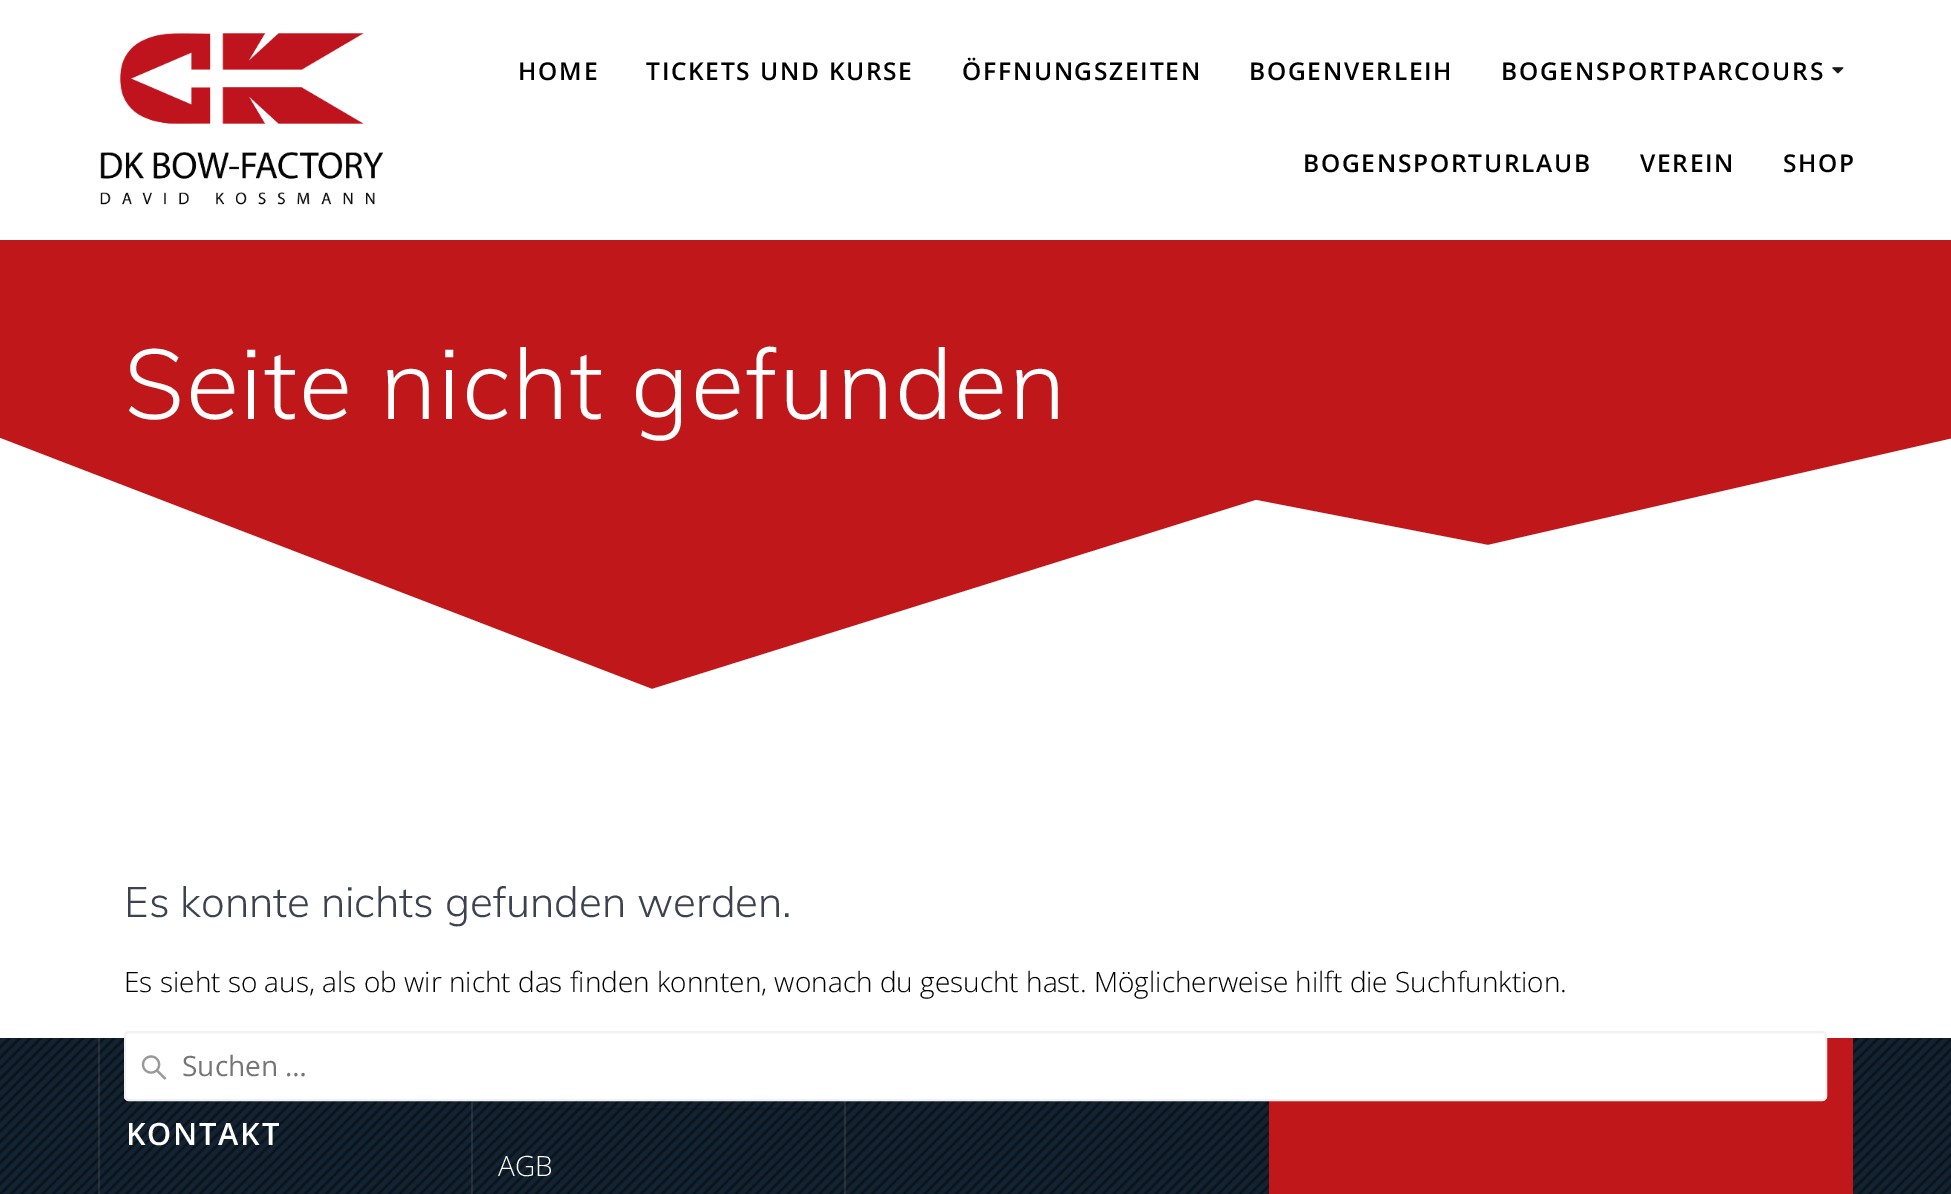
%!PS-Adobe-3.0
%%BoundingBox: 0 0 1951 1194
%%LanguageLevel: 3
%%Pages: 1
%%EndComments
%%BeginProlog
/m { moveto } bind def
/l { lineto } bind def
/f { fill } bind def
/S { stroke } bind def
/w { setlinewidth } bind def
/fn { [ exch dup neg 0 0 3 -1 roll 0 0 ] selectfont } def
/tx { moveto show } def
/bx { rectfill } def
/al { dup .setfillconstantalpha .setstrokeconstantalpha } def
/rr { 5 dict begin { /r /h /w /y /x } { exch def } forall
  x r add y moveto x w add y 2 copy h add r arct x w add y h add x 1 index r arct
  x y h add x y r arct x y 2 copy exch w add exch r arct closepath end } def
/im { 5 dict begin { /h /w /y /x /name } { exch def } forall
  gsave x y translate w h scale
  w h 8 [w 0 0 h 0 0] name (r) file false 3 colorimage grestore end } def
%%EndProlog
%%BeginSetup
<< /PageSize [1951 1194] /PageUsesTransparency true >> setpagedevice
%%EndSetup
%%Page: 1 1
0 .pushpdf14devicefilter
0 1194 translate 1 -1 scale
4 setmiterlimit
0.753 0.09 0.102 setrgbcolor
0 0 1951 1194 bx
1 setgray
0 0 1951 240 bx
(image0.raw) 100 33 284 172 im
/OpenSans-SemiBold 24.5 fn
0 setgray
518 80 m 1.75 0 (HOME) ashow
646 80 m 1.75 0 (TICKETS UND KURSE) ashow
962 80 m 1.75 0 (ÖFFNUNGSZEITEN) ashow
1249 80 m 1.75 0 (BOGENVERLEIH) ashow
1501 80 m 1.75 0 (BOGENSPORTPARCOURS) ashow
(image1.raw) 1832 67 12 7 im
1303 172 m 1.75 0 (BOGENSPORTURLAUB) ashow
1640 172 m 1.75 0 (VEREIN) ashow
1783 172 m 1.75 0 (SHOP) ashow
1 setgray
1488 545 m 1256 500 l 652 689 l 0 438 l 0 705 l 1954 705 l 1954 438 l f
/Muli-Light 98 fn
124 419 m 1.6 0 (Seite nicht gefunden) ashow
0 705 1951 333 bx
/Muli-Light 42 fn
0.235 0.259 0.31 setrgbcolor
(Es konnte nichts gefunden werden.) 124 917 tx
/OpenSans-Light 28 fn
0 setgray
(Es sieht so aus, als ob wir nicht das finden konnten, wonach du gesucht hast. Möglicherweise hilft die Suchfunktion.) 124 992 tx
0.075 0.137 0.196 setrgbcolor
0 1038 1951 156 bx
(image3.raw) 0 1038 1951 156 im
0.753 0.09 0.102 setrgbcolor
1269 1038 584 156 bx
1 setgray
124 1031 1703 70 5 rr f
(image2.raw) 141 1055 26 25 im
0.945 setgray
2 w
125 1032 1701 68 4 rr S
/OpenSans-Regular 28 fn
0.459 setgray
(Suchen …) 182 1076 tx
0.2 al
0.502 setgray
98 1038 2 156 bx
/OpenSans-SemiBold 30.75 fn
1 al
1 setgray
126 1145 m 1.75 0 (KONTAKT) ashow
0.2 al
0.502 setgray
844 1101 2 93 bx
471 1101 2 93 bx
0.1 al
0 setgray
499 1108 318 2 bx
/OpenSans-Light 28 fn
1 al
1 setgray
(AGB) 498 1176 tx
.poppdf14devicefilter showpage
%%EOF
